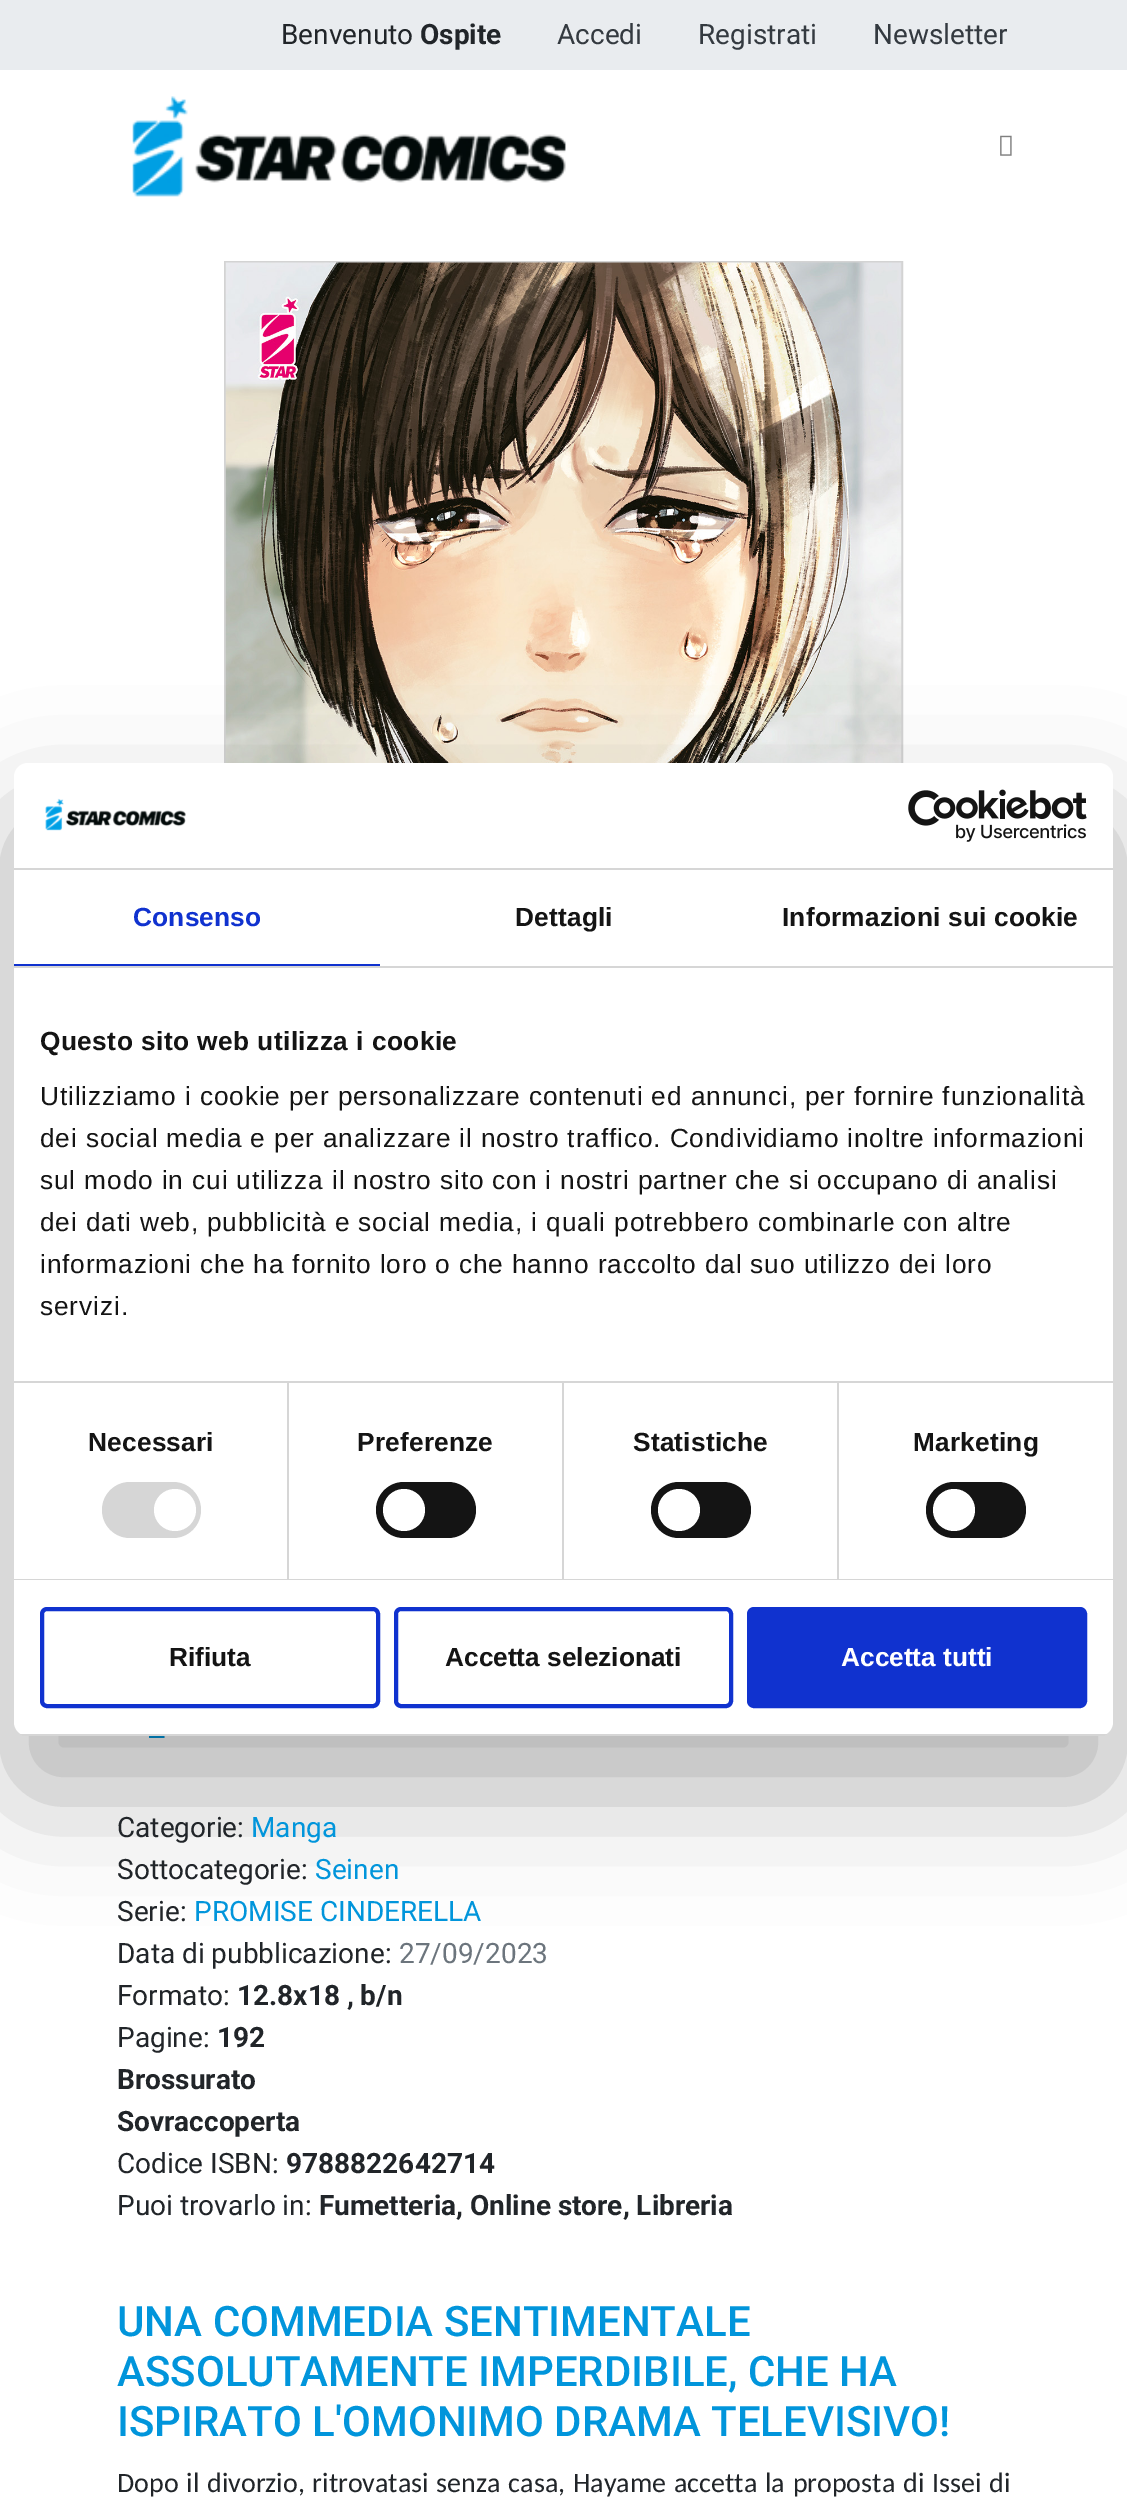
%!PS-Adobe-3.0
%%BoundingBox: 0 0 1127 2499
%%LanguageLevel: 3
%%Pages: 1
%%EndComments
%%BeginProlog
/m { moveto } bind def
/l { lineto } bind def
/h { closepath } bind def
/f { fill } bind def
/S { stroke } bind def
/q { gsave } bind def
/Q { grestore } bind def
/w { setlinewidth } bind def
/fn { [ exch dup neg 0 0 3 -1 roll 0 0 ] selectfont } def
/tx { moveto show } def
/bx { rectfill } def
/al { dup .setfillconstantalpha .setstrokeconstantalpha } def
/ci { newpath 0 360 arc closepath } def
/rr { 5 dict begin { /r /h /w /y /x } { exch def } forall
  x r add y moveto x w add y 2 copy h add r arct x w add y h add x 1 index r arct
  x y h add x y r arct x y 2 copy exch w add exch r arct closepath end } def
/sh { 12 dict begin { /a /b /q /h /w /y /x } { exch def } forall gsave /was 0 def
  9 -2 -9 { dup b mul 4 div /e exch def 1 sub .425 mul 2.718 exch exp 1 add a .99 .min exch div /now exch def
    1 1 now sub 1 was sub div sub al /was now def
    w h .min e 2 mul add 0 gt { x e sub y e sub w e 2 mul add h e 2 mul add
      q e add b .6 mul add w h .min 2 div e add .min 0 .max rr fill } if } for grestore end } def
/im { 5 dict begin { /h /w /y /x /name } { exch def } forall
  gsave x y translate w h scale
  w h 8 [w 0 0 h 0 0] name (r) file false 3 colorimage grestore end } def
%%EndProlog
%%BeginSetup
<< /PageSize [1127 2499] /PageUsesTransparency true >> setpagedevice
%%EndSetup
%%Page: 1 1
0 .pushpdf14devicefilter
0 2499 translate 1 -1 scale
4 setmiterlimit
1 setgray
0 0 1127 2499 bx
0.914 0.925 0.937 setrgbcolor
0 0 1127 70 bx
/Roboto-Regular 28 fn
0.129 0.145 0.161 setrgbcolor
(Benvenuto) 281 44 tx
/Roboto-Bold 28 fn
(Ospite) 420 44 tx
/Roboto-Regular 28 fn
0.204 0.227 0.251 setrgbcolor
(Accedi) 557 44 tx
(Registrati) 698 44 tx
(Newsletter) 873 44 tx
(image0.raw) 132 96 434 101 im
(image1.raw) 1000 135 12 21 im
0.827 setgray
2 w
225 262 677 952 rectstroke
(image4.raw) 225 262 677 501 im
0.004 0.584 0.859 setrgbcolor
149 1738 m 149 1710.5 l 164.5 1710.5 l 164.5 1738 l h 151 1736 m 162.5 1736 l 162.5 1712 l 151 1712 l h f
0 setgray
14 819 1099 973 14 59.5 0.3 sh
1 setgray
14 763 1099 973 14 rr f
0.839 setgray
14 868 1099 2 bx
(image2.raw) 45 798 141 33 im
(image3.raw) 908 789 179 53 im
14 966 1099 2 bx
0.063 0.196 0.812 setrgbcolor
14 964 366 2 bx
/LiberationSans-Bold 26.25 fn
133 926 m 0.2 0 (Consenso) ashow
0.078 setgray
515 926 m 0.2 0 (Dettagli) ashow
782 926 m 0.2 0 (Informazioni sui cookie) ashow
0.839 setgray
14 1381 1099 2 bx
0.078 setgray
40 1050 m 0.45 0 (Questo sito web utilizza i cookie) ashow
/LiberationSans-Regular 26.25 fn
40 1105 m 0.88 0 (Utilizziamo i cookie per personalizzare contenuti ed annunci, per fornire funzionalità) ashow
40 1147 m 0.88 0 (dei social media e per analizzare il nostro traffico. Condividiamo inoltre informazioni) ashow
40 1189 m 0.88 0 (sul modo in cui utilizza il nostro sito con i nostri partner che si occupano di analisi) ashow
40 1231 m 0.88 0 (dei dati web, pubblicità e social media, i quali potrebbero combinarle con altre) ashow
40 1273 m 0.88 0 (informazioni che ha fornito loro o che hanno raccolto dal suo utilizzo dei loro) ashow
40 1315 m 0.88 0 (servizi.) ashow
0.839 setgray
14 1579 1099 1 bx
287 1383 2 196 bx
/LiberationSans-Bold 26.25 fn
0.078 setgray
88 1451 m 0.2 0 (Necessari) ashow
0.839 setgray
102 1482 99 56 28 rr f
1 setgray
175 1510 21 ci f
0.839 setgray
562 1383 2 196 bx
0.078 setgray
357 1451 m 0.2 0 (Preferenze) ashow
376 1482 100 56 28 rr f
1 setgray
404 1510 21 ci f
0.839 setgray
837 1383 2 196 bx
0.078 setgray
633 1451 m 0.2 0 (Statistiche) ashow
651 1482 100 56 28 rr f
1 setgray
679 1510 21 ci f
0.078 setgray
913 1451 m 0.2 0 (Marketing) ashow
926 1482 100 56 28 rr f
1 setgray
954 1510 21 ci f
q
14 763 1099 973 14 rr clip newpath
0.839 setgray
14 1734 1099 2 bx
Q
0.063 0.196 0.812 setrgbcolor
4 w
42 1609 336 97 5 rr S
0.078 setgray
(Rifiuta) 169 1666 tx
0.063 0.196 0.812 setrgbcolor
396 1609 335 97 5 rr S
0.078 setgray
(Accetta selezionati) 445 1666 tx
0.063 0.196 0.812 setrgbcolor
749 1609 336 97 5 rr q f Q
S
1 setgray
(Accetta tutti) 841 1666 tx
/Roboto-Regular 28 fn
0.129 0.145 0.161 setrgbcolor
(Categorie:) 117 1837 tx
0.004 0.584 0.859 setrgbcolor
(Manga) 251 1837 tx
0.129 0.145 0.161 setrgbcolor
(Sottocategorie:) 117 1879 tx
0.004 0.584 0.859 setrgbcolor
(Seinen) 315 1879 tx
0.129 0.145 0.161 setrgbcolor
(Serie:) 117 1921 tx
0.004 0.584 0.859 setrgbcolor
(PROMISE CINDERELLA) 194 1921 tx
0.129 0.145 0.161 setrgbcolor
(Data di pubblicazione:) 117 1963 tx
0.424 0.459 0.49 setrgbcolor
(27/09/2023) 399 1963 tx
0.129 0.145 0.161 setrgbcolor
(Formato:) 117 2005 tx
/Roboto-Bold 28 fn
(12.8x18 , b/n) 237 2005 tx
/Roboto-Regular 28 fn
(Pagine:) 117 2047 tx
/Roboto-Bold 28 fn
(192) 217 2047 tx
(Brossurato) 117 2089 tx
(Sovraccoperta) 117 2131 tx
/Roboto-Regular 28 fn
(Codice ISBN:) 117 2173 tx
/Roboto-Bold 28 fn
(9788822642714) 286 2173 tx
/Roboto-Regular 28 fn
(Puoi trovarlo in:) 117 2215 tx
/Roboto-Bold 28 fn
(Fumetteria, Online store, Libreria) 319 2215 tx
/Roboto-Medium 42 fn
0.004 0.584 0.859 setrgbcolor
(UNA COMMEDIA SENTIMENTALE) 117 2336 tx
(ASSOLUTAMENTE IMPERDIBILE, CHE HA) 117 2386 tx
(ISPIRATO L'OMONIMO DRAMA TELEVISIVO!) 117 2436 tx
/Carlito-Regular 28 fn
0.129 0.145 0.161 setrgbcolor
117 2492 m 1.5 0 32 (Dopo il divorzio, ritrovatasi senza casa, Hayame accetta la proposta di Issei di) widthshow
.poppdf14devicefilter showpage
%%EOF
